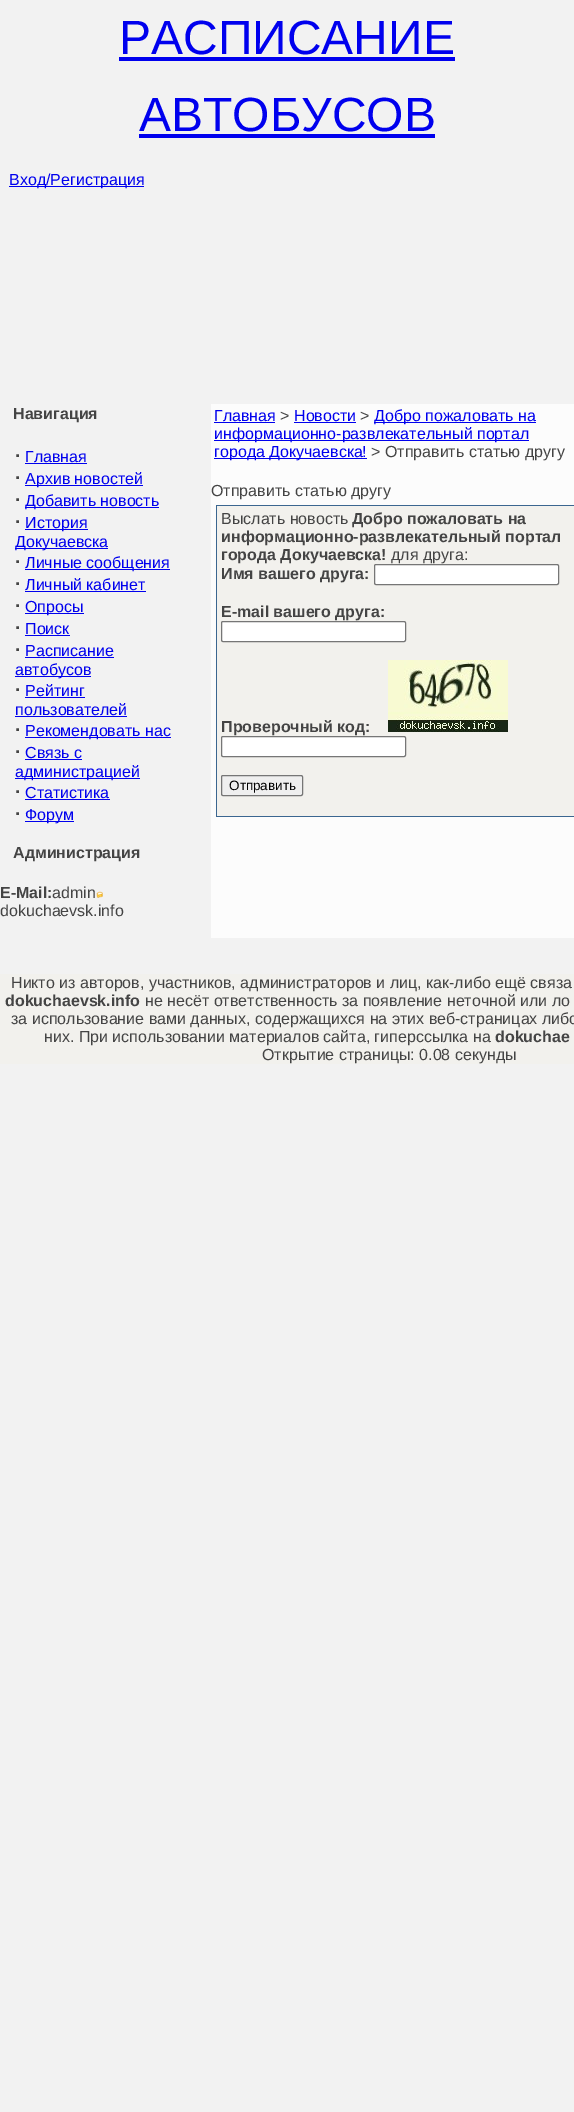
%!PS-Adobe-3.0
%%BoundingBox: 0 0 574 2112
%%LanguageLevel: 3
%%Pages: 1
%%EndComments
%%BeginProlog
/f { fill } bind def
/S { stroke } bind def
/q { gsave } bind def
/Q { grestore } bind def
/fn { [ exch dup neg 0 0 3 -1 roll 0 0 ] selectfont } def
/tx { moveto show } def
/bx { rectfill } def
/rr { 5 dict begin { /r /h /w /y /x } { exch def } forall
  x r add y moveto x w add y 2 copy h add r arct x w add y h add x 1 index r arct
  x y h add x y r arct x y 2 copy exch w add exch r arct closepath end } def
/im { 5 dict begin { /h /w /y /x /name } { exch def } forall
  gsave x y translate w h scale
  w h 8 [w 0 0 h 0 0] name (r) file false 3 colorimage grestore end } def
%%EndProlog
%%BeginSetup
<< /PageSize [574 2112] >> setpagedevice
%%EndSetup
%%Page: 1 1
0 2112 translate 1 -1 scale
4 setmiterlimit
0.949 setgray
0 0 574 2112 bx
/LiberationSans-Regular 48 fn
0 0 0.933 setrgbcolor
(РАСПИСАНИЕ) 119 54 tx
119 57 336 4 bx
(АВТОБУСОВ) 139 131 tx
139 134 296 4 bx
9 186 135 1 bx
/LiberationSans-Regular 16 fn
(Вход/Регистрация) 9 185 tx
/LiberationSans-Bold 16 fn
0.267 setgray
(Навигация) 13 419 tx
/LiberationSans-Bold 19 fn
(·) 15 462 tx
/LiberationSans-Regular 16 fn
0 0 0.933 setrgbcolor
(Главная) 25 462 tx
25 463 62 1 bx
/LiberationSans-Bold 19 fn
0.267 setgray
(·) 15 484 tx
0 0 0.933 setrgbcolor
25 485 118 1 bx
/LiberationSans-Regular 16 fn
(Архив новостей) 25 484 tx
/LiberationSans-Bold 19 fn
0.267 setgray
(·) 15 506 tx
0 0 0.933 setrgbcolor
25 507 134 1 bx
/LiberationSans-Regular 16 fn
(Добавить новость) 25 506 tx
/LiberationSans-Bold 19 fn
0.267 setgray
(·) 15 528 tx
0 0 0.933 setrgbcolor
25 529 63 1 bx
/LiberationSans-Regular 16 fn
(История) 25 528 tx
15 548 93 1 bx
(Докучаевска) 15 547 tx
/LiberationSans-Bold 19 fn
0.267 setgray
(·) 15 568 tx
0 0 0.933 setrgbcolor
25 569 145 1 bx
/LiberationSans-Regular 16 fn
(Личные сообщения) 25 568 tx
/LiberationSans-Bold 19 fn
0.267 setgray
(·) 15 590 tx
/LiberationSans-Regular 16 fn
0 0 0.933 setrgbcolor
(Личный кабинет) 25 590 tx
25 591 121 1 bx
/LiberationSans-Bold 19 fn
0.267 setgray
(·) 15 612 tx
0 0 0.933 setrgbcolor
25 613 59 1 bx
/LiberationSans-Regular 16 fn
(Опросы) 25 612 tx
/LiberationSans-Bold 19 fn
0.267 setgray
(·) 15 634 tx
/LiberationSans-Regular 16 fn
0 0 0.933 setrgbcolor
(Поиск) 25 634 tx
25 635 45 1 bx
/LiberationSans-Bold 19 fn
0.267 setgray
(·) 15 656 tx
/LiberationSans-Regular 16 fn
0 0 0.933 setrgbcolor
(Расписание) 25 656 tx
25 657 89 1 bx
15 676 76 1 bx
(автобусов) 15 675 tx
/LiberationSans-Bold 19 fn
0.267 setgray
(·) 15 696 tx
/LiberationSans-Regular 16 fn
0 0 0.933 setrgbcolor
(Рейтинг) 25 696 tx
25 697 60 1 bx
(пользователей) 15 715 tx
15 716 112 1 bx
/LiberationSans-Bold 19 fn
0.267 setgray
(·) 15 736 tx
0 0 0.933 setrgbcolor
25 737 146 1 bx
/LiberationSans-Regular 16 fn
(Рекомендовать нас) 25 736 tx
/LiberationSans-Bold 19 fn
0.267 setgray
(·) 15 758 tx
/LiberationSans-Regular 16 fn
0 0 0.933 setrgbcolor
(Связь с) 25 758 tx
25 759 57 1 bx
15 778 125 1 bx
(администрацией) 15 777 tx
/LiberationSans-Bold 19 fn
0.267 setgray
(·) 15 798 tx
/LiberationSans-Regular 16 fn
0 0 0.933 setrgbcolor
(Статистика) 25 798 tx
25 799 85 1 bx
/LiberationSans-Bold 19 fn
0.267 setgray
(·) 15 820 tx
0 0 0.933 setrgbcolor
25 821 49 1 bx
/LiberationSans-Regular 16 fn
(Форум) 25 820 tx
/LiberationSans-Bold 16 fn
0.267 setgray
(Администрация) 13 858 tx
(E-Mail:) 0 898 tx
/LiberationSans-Regular 16 fn
(admin) 52 898 tx
(image0.raw) 96 891 7 7 im
(dokuchaevsk.info) 0 916 tx
0.988 setgray
211 404 363 534 bx
0 0 0.933 setrgbcolor
(Главная) 214 421 tx
214 422 61 1 bx
0.267 setgray
(>) 280 421 tx
0 0 0.933 setrgbcolor
(Новости) 294 421 tx
294 422 62 1 bx
0.267 setgray
(>) 360 421 tx
0 0 0.933 setrgbcolor
374 422 162 1 bx
(Добро пожаловать на) 374 421 tx
214 440 315 1 bx
(информационно-развлекательный портал) 214 439 tx
214 458 153 1 bx
(города Докучаевска!) 214 457 tx
0.267 setgray
(> Отправить статью другу) 371 457 tx
(Отправить статью другу) 211 496 tx
0.231 0.4 0.565 setrgbcolor
216 505 358 312 bx
0.949 0.945 0.929 setrgbcolor
217 506 357 310 bx
0.267 setgray
(Выслать новость) 221 524 tx
/LiberationSans-Bold 16 fn
(Добро пожаловать на) 352 524 tx
(информационно-развлекательный портал) 221 542 tx
(города Докучаевска!) 221 560 tx
/LiberationSans-Regular 16 fn
(для друга:) 391 560 tx
/LiberationSans-Bold 16 fn
(Имя вашего друга:) 221 579 tx
1 setgray
374.5 564.5 184 20 1.5 rr q f Q
0.463 setgray
S
0.267 setgray
(E-mail вашего друга:) 221 617 tx
1 setgray
221.5 621.5 184 20 1.5 rr q f Q
0.463 setgray
S
0.267 setgray
(Проверочный код:) 221 732 tx
(image1.raw) 388 660 120 72 im
1 setgray
221.5 736.5 184 20 1.5 rr q f Q
0.463 setgray
S
0.937 setgray
221.5 775.5 81 20 1.5 rr q f Q
0.463 setgray
S
/LiberationSans-Regular 13.5 fn
0 setgray
(Отправить) 229 790 tx
0.949 0.945 0.929 setrgbcolor
0 974 574 90 bx
/LiberationSans-Regular 16 fn
0.267 setgray
(Никто из авторов, участников, администраторов и лиц, как-либо ещё связа) 11 988 tx
/LiberationSans-Bold 16 fn
(dokuchaevsk.info) 5 1006 tx
/LiberationSans-Regular 16 fn
(не несёт ответственность за появление неточной или ло) 145 1006 tx
(за использование вами данных, содержащихся на этих веб-страницах либо) 11 1024 tx
(них. При использовании материалов сайта, гиперссылка на) 44 1042 tx
/LiberationSans-Bold 16 fn
(dokuchae) 495 1042 tx
/LiberationSans-Regular 16 fn
(Открытие страницы: 0.08 секунды) 262 1060 tx
showpage
%%EOF
